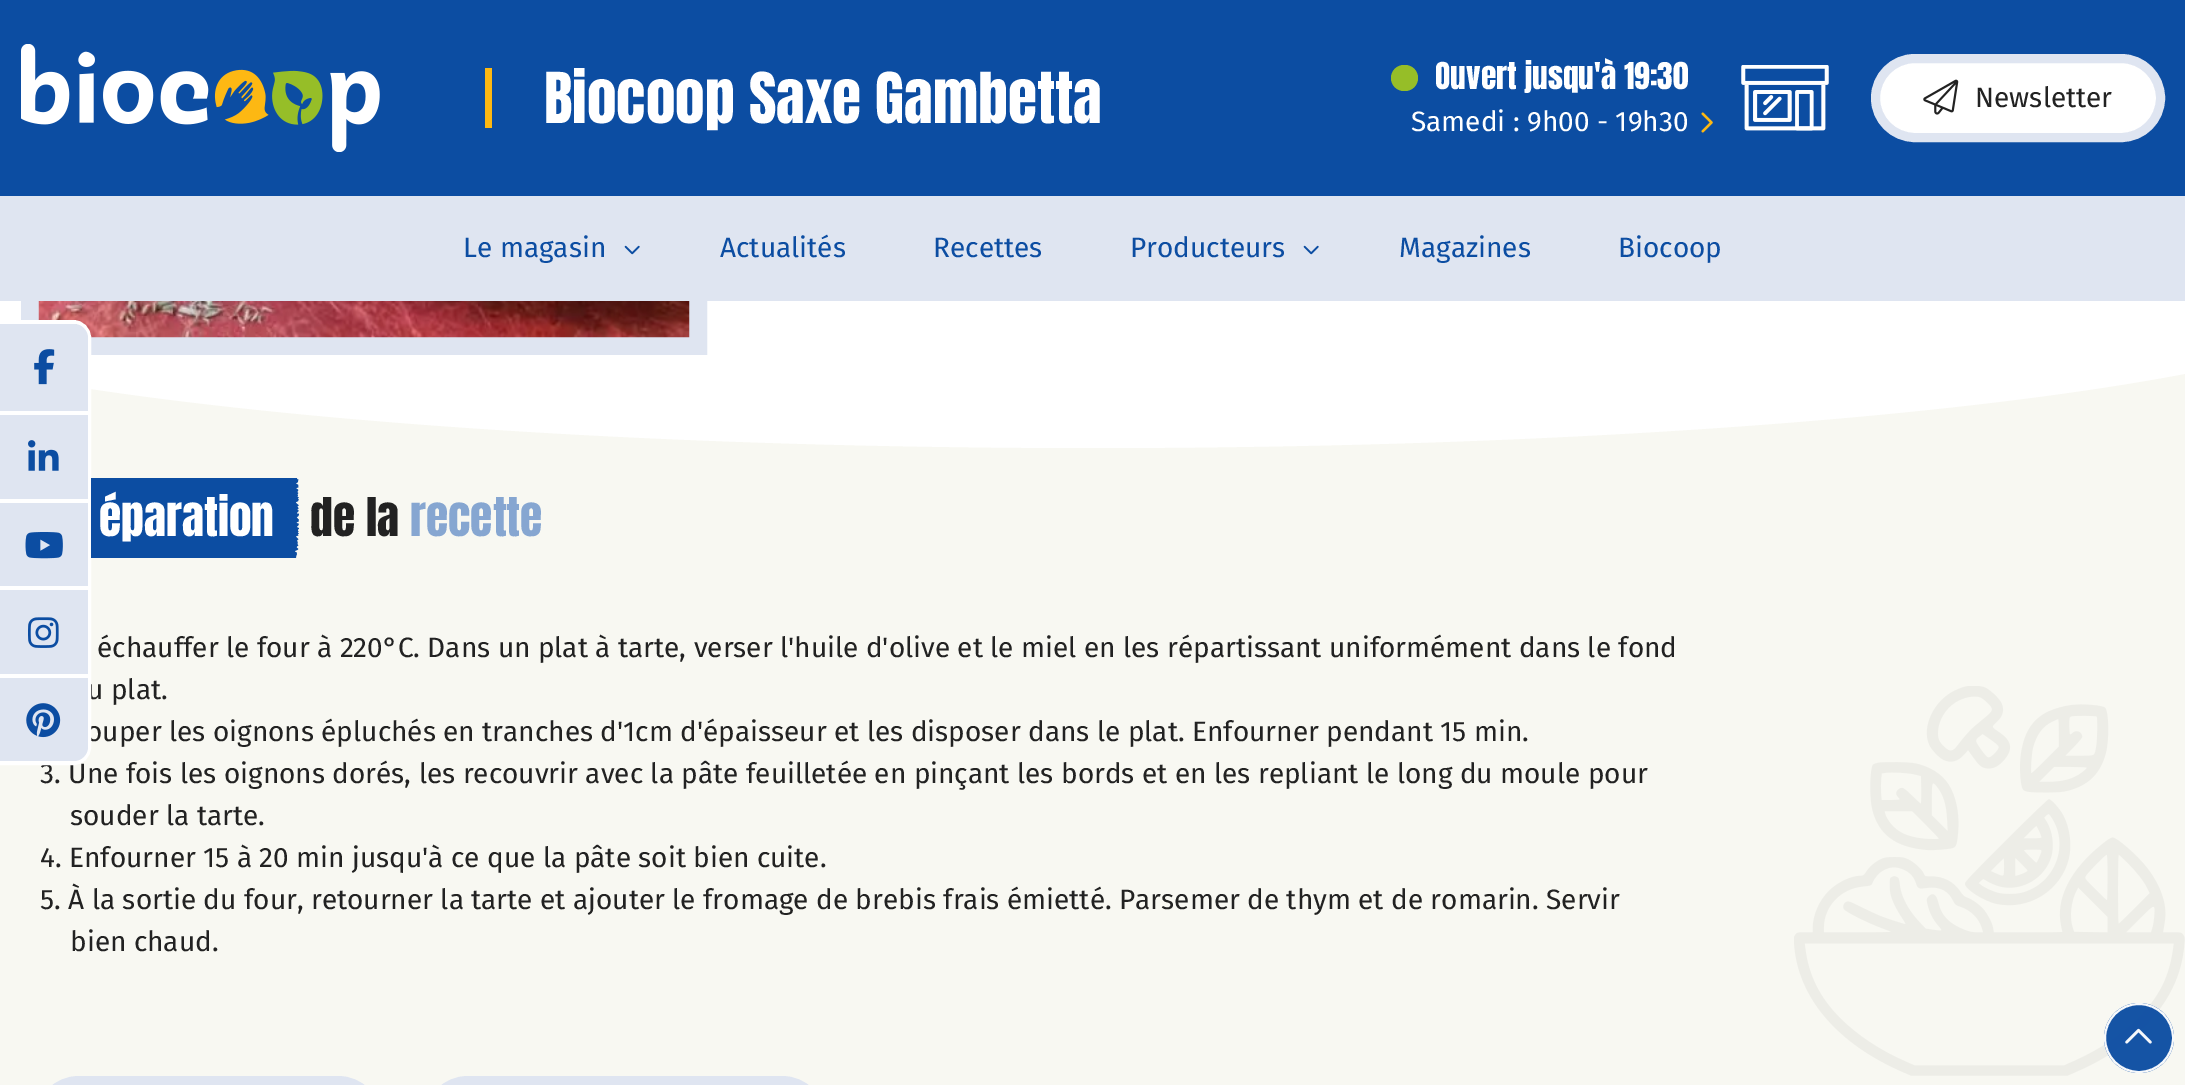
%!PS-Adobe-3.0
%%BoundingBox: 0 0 2185 1085
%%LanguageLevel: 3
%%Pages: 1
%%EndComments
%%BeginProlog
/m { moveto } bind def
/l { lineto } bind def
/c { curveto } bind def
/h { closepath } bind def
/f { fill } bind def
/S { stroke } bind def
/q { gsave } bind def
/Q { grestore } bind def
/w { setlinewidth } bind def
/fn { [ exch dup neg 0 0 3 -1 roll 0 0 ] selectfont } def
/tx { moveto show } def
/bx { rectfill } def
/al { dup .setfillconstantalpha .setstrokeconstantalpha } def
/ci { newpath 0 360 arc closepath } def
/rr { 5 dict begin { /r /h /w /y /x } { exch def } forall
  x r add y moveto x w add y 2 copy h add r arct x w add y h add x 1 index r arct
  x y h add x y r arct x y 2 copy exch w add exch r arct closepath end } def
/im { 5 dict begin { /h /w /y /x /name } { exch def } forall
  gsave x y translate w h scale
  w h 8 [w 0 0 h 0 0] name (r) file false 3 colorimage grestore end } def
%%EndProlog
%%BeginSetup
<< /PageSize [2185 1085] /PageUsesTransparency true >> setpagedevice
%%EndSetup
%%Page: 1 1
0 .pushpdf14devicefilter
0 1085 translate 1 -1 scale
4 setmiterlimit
1 setgray
0 0 2185 1085 bx
0.875 0.898 0.945 setrgbcolor
18 w
30 -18 668 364 rectstroke
0.047 0.302 0.635 setrgbcolor
0 0 2185 196 bx
(image0.raw) 21 44 359 108 im
0.992 0.722 0.075 setrgbcolor
485 68 7 60 bx
/Anton-Regular 59.5 fn
1 setgray
(Biocoop Saxe Gambetta) 544 123 tx
0.588 0.745 0.157 setrgbcolor
1391 65 27 26 13 rr f
/Anton-Regular 31.5 fn
1 setgray
(Ouvert jusqu'à 19:30) 1435 89 tx
(image1.raw) 1741 65 88 66 im
/FiraSans-Regular 28 fn
(Samedi : 9h00 - 19h30) 1411 131 tx
(image2.raw) 1701 112 12 21 im
1875.5 58.5 285 79 39.5 rr q f Q
0.875 0.898 0.945 setrgbcolor
9 w
S
(image3.raw) 1923 79 36 36 im
0.133 setgray
(Newsletter) 1975 107 tx
0.875 0.898 0.945 setrgbcolor
0 196 2185 105 bx
0.047 0.302 0.635 setrgbcolor
(Le magasin) 463 257 tx
(image4.raw) 624 245 16 10 im
(Actualités) 720 257 tx
(Recettes) 933 257 tx
(Producteurs) 1130 257 tx
(image4.raw) 1303 245 16 10 im
(Magazines) 1399 257 tx
(Biocoop) 1618 257 tx
0.973 0.973 0.949 setrgbcolor
0 373 2185 712 bx
(image13.raw) 1794 686 391 390 im
0.96 al
0.047 0.302 0.635 setrgbcolor
2139 1038 35 ci f
1 setgray
2 w
2139 1038 34 ci S
1 al
(image5.raw) 2125 1028 27 16 im
(image11.raw) 38 301 652 37 im
q
0 355 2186 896 rectclip
1093 116 m 1817 116 2404 190.5 2404 282 c 2404 373.5 1817 448 1093 448 c 369 448 -218 373.5 -218 282 c -218 190.5 369 116 1093 116 c h f
Q
0.133 setgray
(u plat.) 87 699 tx
(ouper les oignons épluchés en tranches d'1cm d'épaisseur et les disposer dans le plat. Enfourner pendant 15 min.) 86 741 tx
(3. Une fois les oignons dorés, les recouvrir avec la pâte feuilletée en pinçant les bords et en les repliant le long du moule pour) 40 783 tx
1 setgray
4 w
-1 322 m 73 322 l 82 322 89 329 89 338 c 89 747 l 89 756 82 763 73 763 c -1 763 l h S
0.875 0.898 0.945 setrgbcolor
0 324 m 74 324 l 81.5 324 88 330.5 88 338 c 88 411 l 0 411 l h f
(image6.raw) 34 349 21 36 im
0 415 88 84 bx
1 setgray
0 411 88 4 bx
(image7.raw) 28 440 31 31 im
0.875 0.898 0.945 setrgbcolor
0 503 88 83 bx
1 setgray
0 499 88 4 bx
(image8.raw) 25 532 38 27 im
0.875 0.898 0.945 setrgbcolor
0 590 88 84 bx
1 setgray
0 586 88 4 bx
(image9.raw) 28 617 31 31 im
0.875 0.898 0.945 setrgbcolor
0 677 m 88 677 l 88 747 l 88 754.5 81.5 761 74 761 c 0 761 l h f
1 setgray
0 674 88 4 bx
(image10.raw) 26 703 35 35 im
(image12.raw) 91 478 208 80 im
/Anton-Regular 45.5 fn
(éparation) 99 536 tx
0.133 setgray
(de la) 310 536 tx
0.525 0.651 0.82 setrgbcolor
(recette) 410 536 tx
/FiraSans-Regular 28 fn
0.133 setgray
(échauffer le four à 220°C. Dans un plat à tarte, verser l'huile d'olive et le miel en les répartissant uniformément dans le fond) 97 657 tx
(souder la tarte.) 70 825 tx
(4. Enfourner 15 à 20 min jusqu'à ce que la pâte soit bien cuite.) 40 867 tx
(5. À la sortie du four, retourner la tarte et ajouter le fromage de brebis frais émietté. Parsemer de thym et de romarin. Servir) 40 909 tx
(bien chaud.) 70 951 tx
0.875 0.898 0.945 setrgbcolor
9 w
39.5 1080.5 338 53 39.5 rr S
428.5 1080.5 393 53 39.5 rr S
.poppdf14devicefilter showpage
%%EOF
